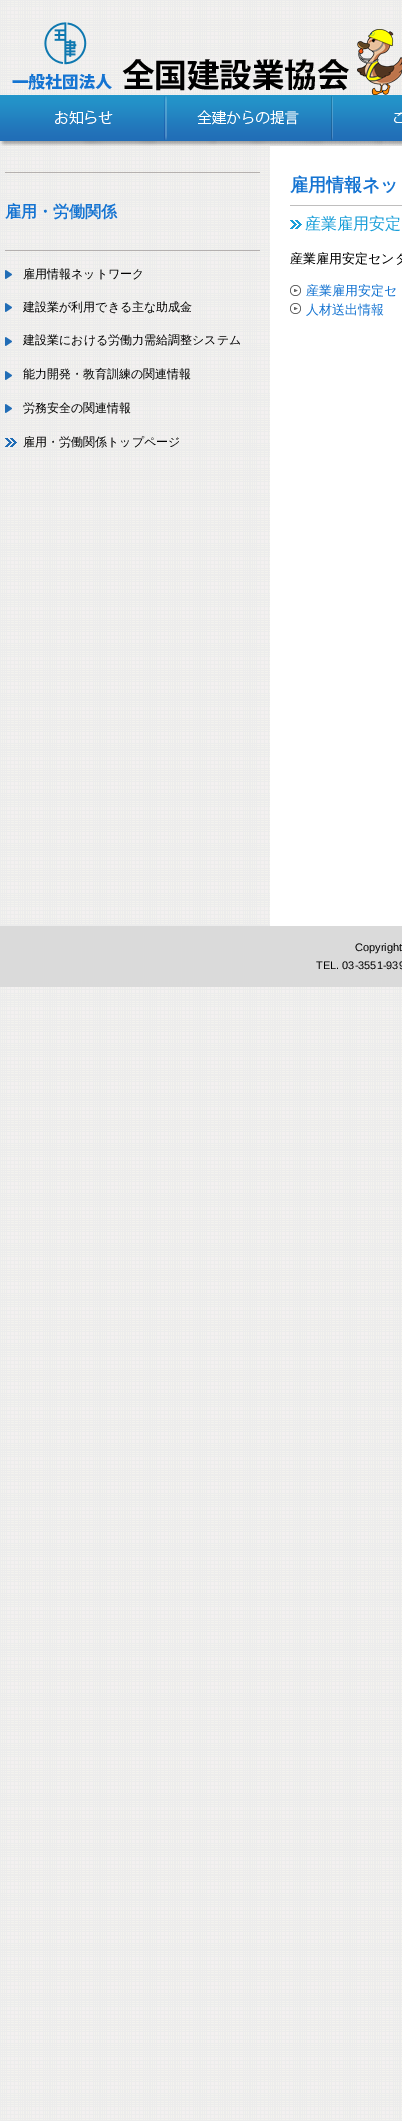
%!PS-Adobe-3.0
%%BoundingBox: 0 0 402 2121
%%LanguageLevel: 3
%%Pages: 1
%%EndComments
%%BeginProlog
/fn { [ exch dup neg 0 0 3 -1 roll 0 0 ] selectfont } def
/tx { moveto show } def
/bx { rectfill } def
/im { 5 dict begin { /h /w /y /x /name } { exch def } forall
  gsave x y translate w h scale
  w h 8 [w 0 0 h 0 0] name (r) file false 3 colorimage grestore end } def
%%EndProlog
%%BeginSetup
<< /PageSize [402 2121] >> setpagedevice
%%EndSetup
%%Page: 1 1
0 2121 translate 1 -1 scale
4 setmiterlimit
1 setgray
0 0 402 2121 bx
(image0.raw) 0 0 402 2121 im
(image1.raw) 12 22 337 69 im
(image2.raw) 357 29 45 66 im
(image3.raw) 0 95 166 51 im
(image4.raw) 166 95 166 51 im
(image5.raw) 332 95 70 51 im
0.706 0.69 0.686 setrgbcolor
5 172 255 1 bx
/WenQuanYiZenHei-Bold 16 fn
0.082 0.455 0.824 setrgbcolor
(雇用・労働関係) 5 217 tx
0.706 0.69 0.686 setrgbcolor
5 250 255 1 bx
(image6.raw) 5 270 7 9 im
/WenQuanYiZenHei-Medium 12 fn
0 setgray
(雇用情報ネットワーク) 23 278 tx
(image7.raw) 5 303 7 9 im
(建設業が利用できる主な助成金) 23 311 tx
(image8.raw) 5 337 7 9 im
(建設業における労働力需給調整システム) 23 344 tx
(image9.raw) 5 371 7 9 im
(能力開発・教育訓練の関連情報) 23 378 tx
(image10.raw) 5 404 7 9 im
(労務安全の関連情報) 23 412 tx
(image11.raw) 5 438 12 9 im
(雇用・労働関係トップページ) 23 446 tx
1 setgray
270 146 132 780 bx
/WenQuanYiZenHei-Bold 18 fn
0.082 0.455 0.824 setrgbcolor
(雇用情報ネッ) 290 191 tx
0.749 0.745 0.745 setrgbcolor
290 205 112 1 bx
(image12.raw) 290 220 12 9 im
/WenQuanYiZenHei-Medium 16 fn
0.102 0.624 0.851 setrgbcolor
(産業雇用安定) 305 229 tx
/WenQuanYiZenHei-Medium 13 fn
0 setgray
(産業雇用安定センタ) 290 263 tx
(image13.raw) 290 285 11 11 im
0.082 0.455 0.824 setrgbcolor
(産業雇用安定セ) 306 295 tx
(image13.raw) 290 303 11 11 im
(人材送出情報) 306 314 tx
0.855 setgray
0 926 402 61 bx
/LiberationSans-Regular 11 fn
0 setgray
(Copyright) 355 951 tx
(TEL. 03-3551-939) 316 969 tx
showpage
%%EOF
